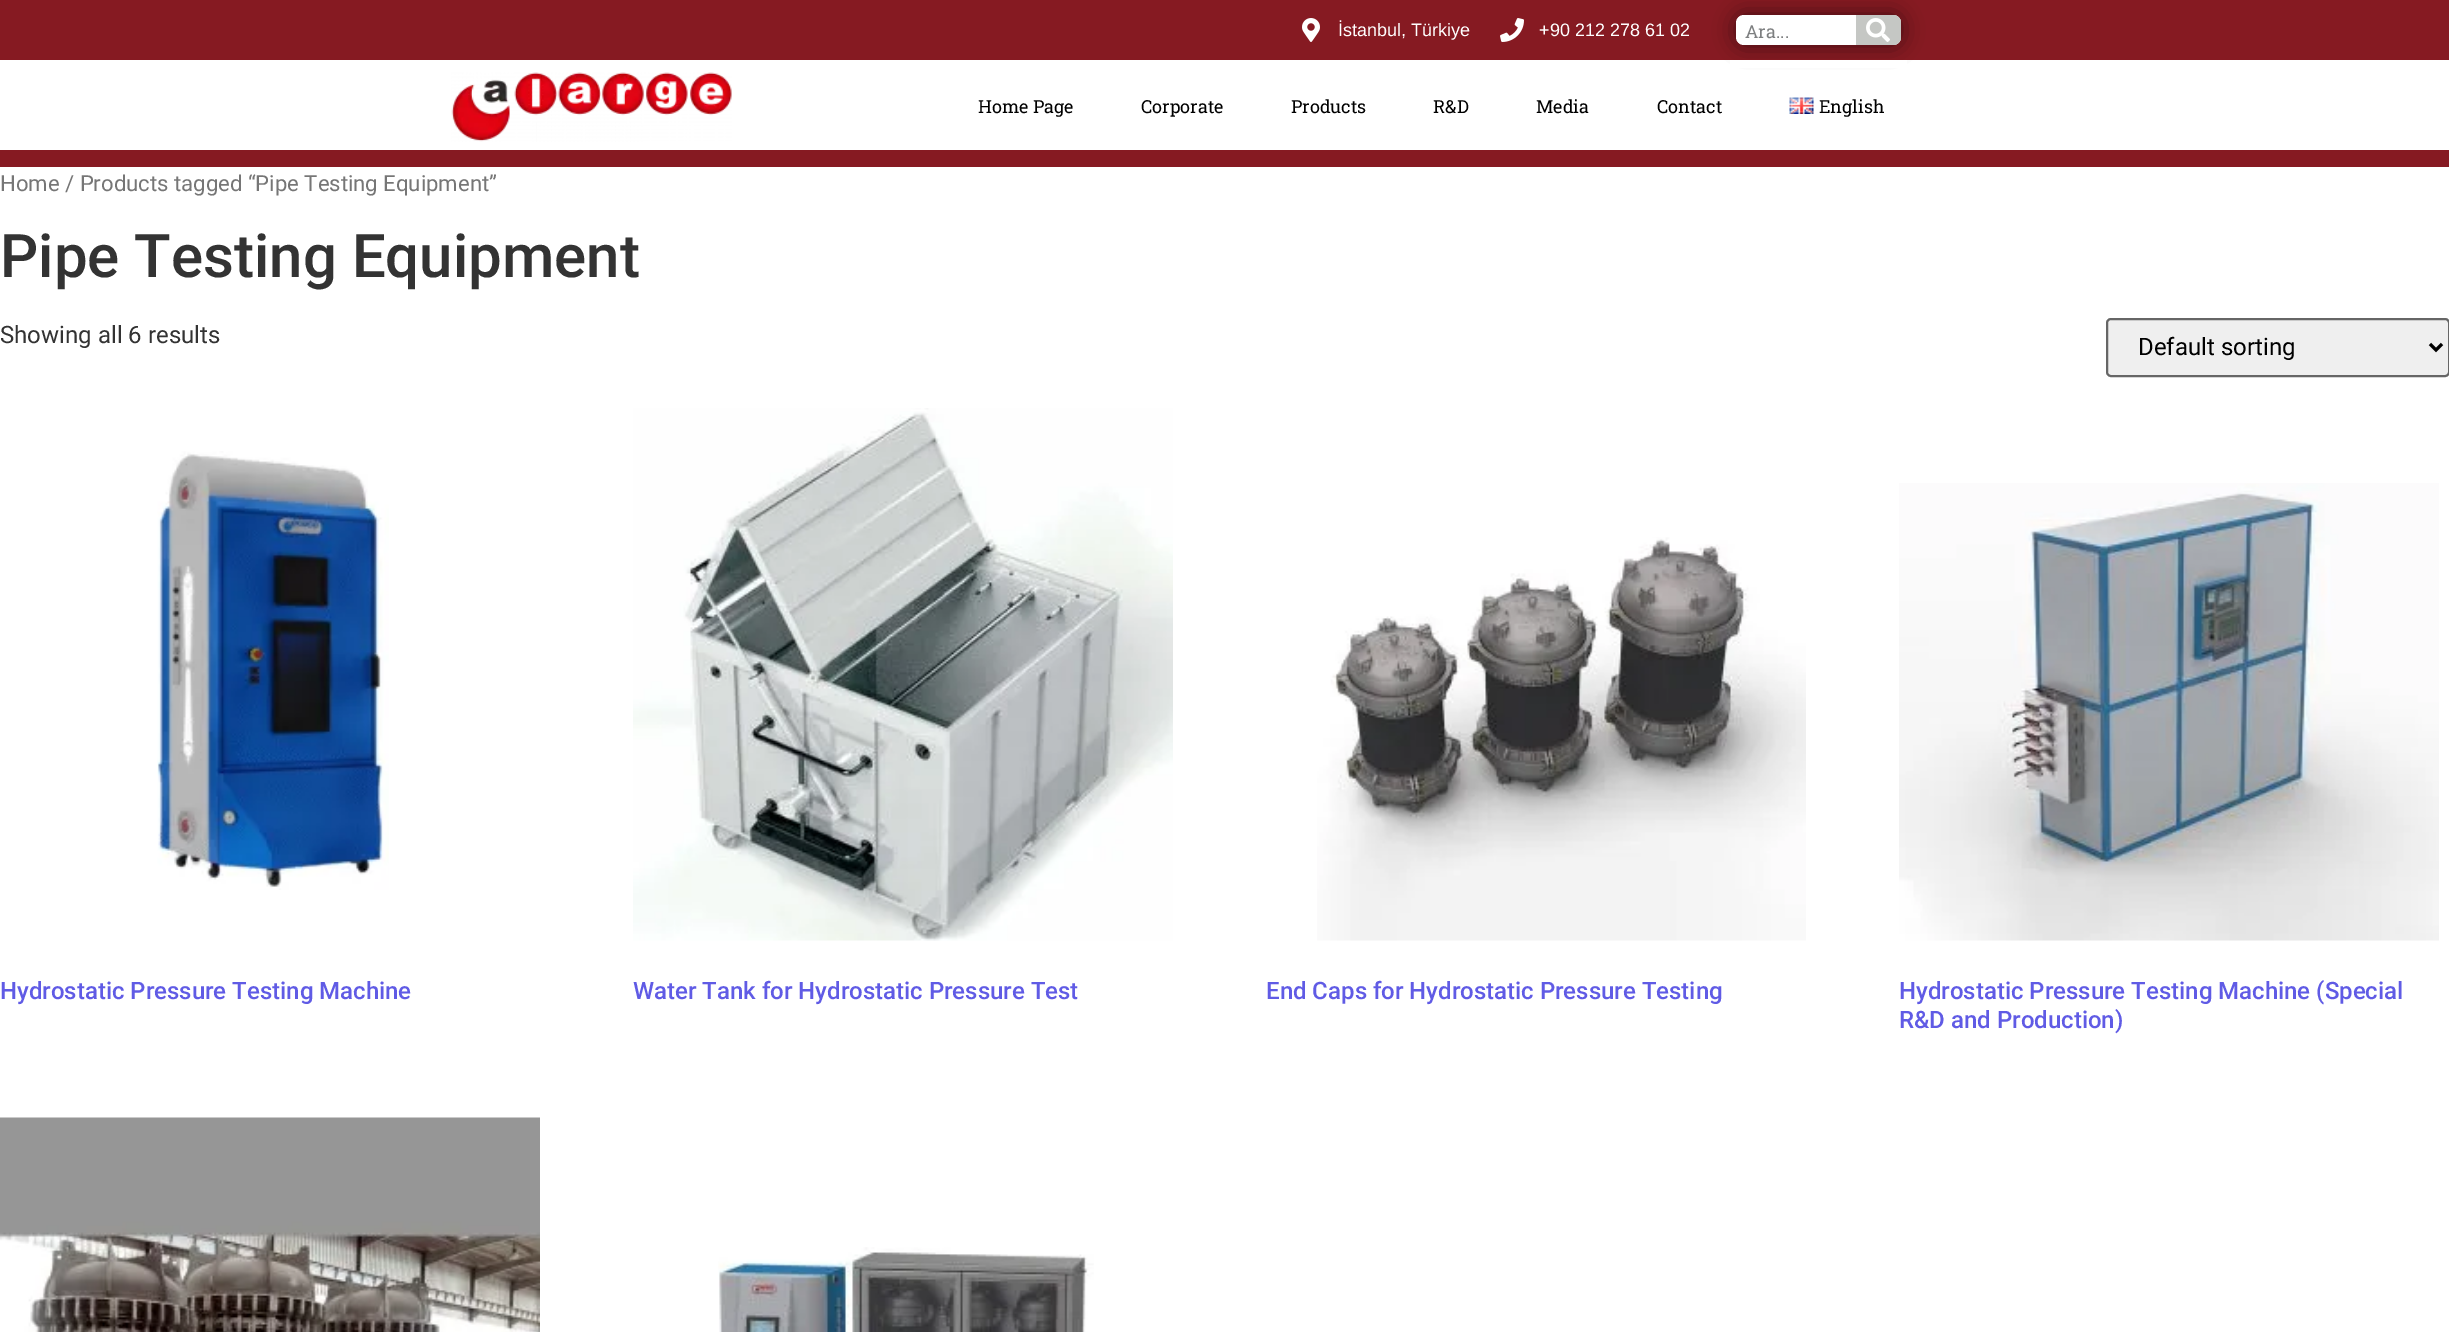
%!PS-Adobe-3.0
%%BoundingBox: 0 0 2449 1332
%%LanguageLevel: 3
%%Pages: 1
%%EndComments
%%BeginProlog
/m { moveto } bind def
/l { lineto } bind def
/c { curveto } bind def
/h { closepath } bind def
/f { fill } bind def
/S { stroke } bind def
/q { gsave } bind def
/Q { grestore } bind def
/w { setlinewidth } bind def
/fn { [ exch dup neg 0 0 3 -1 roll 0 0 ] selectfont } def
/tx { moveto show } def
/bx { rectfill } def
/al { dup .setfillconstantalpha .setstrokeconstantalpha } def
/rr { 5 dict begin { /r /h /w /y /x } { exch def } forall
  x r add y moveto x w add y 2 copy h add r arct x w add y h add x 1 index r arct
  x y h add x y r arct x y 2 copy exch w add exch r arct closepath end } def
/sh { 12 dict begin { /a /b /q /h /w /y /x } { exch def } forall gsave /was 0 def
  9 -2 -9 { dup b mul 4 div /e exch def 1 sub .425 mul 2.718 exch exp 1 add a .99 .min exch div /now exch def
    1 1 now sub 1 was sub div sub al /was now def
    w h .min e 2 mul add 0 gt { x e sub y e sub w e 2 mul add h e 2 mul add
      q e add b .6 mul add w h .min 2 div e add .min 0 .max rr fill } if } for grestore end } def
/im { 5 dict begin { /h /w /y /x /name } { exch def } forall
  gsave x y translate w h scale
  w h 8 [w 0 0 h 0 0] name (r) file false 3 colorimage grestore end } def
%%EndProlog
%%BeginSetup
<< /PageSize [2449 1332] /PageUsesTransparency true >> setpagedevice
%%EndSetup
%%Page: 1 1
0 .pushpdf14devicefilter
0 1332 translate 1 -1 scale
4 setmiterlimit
1 setgray
0 0 2449 1332 bx
0.525 0.102 0.133 setrgbcolor
0 0 2449 60 bx
(image0.raw) 1302 18 18 24 im
/LiberationSans-Regular 18 fn
1 setgray
(İstanbul, Türkiye) 1338 36 tx
(image1.raw) 1500 18 24 24 im
(+90 212 278 61 02) 1539 36 tx
0 setgray
1736 15 165 30 8 11 0.5 sh
1 setgray
1736 15 165 30 8 rr f
/RobotoSlab-Regular 18 fn
0.49 0.498 0.502 setrgbcolor
(Ara...) 1745 38 tx
0.773 0.78 0.769 setrgbcolor
1856 15 m 1893 15 l 1897.5 15 1901 18.5 1901 23 c 1901 37 l 1901 41.5 1897.5 45 1893 45 c 1856 45 l h f
(image2.raw) 1866 18 24 24 im
1 setgray
1730 60 177 8 bx
(image3.raw) 451 72 281 70 im
0 setgray
(Home Page) 978 113 tx
(Corporate) 1141 113 tx
(Products) 1291 113 tx
(R&D) 1433 113 tx
(Media) 1536 113 tx
(Contact) 1657 113 tx
(image4.raw) 1789 97 25 17 im
(English) 1819 113 tx
0.525 0.102 0.133 setrgbcolor
0 150 2449 17 bx
/Roboto-Regular 22.1 fn
0.463 setgray
(Home / Products tagged “Pipe Testing Equipment”) 0 191 tx
/Roboto-Medium 60 fn
0.2 setgray
(Pipe Testing Equipment) 0 277 tx
/Roboto-Regular 24 fn
(Showing all 6 results) 0 343 tx
0.937 setgray
2107 319 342 57 4 rr q f Q
0.4 setgray
2 w
S
0 setgray
3 w
2430 344 m 2436 350 l 2442 344 l S
(Default sorting) 2138 355 tx
(image5.raw) 157 451 232 439 im
/Roboto-Medium 24 fn
0.376 0.357 0.898 setrgbcolor
(Hydrostatic Pressure Testing Machine) 0 999 tx
(image6.raw) 633 408 540 533 im
(Water Tank for Hydrostatic Pressure Test) 633 999 tx
(image7.raw) 1317 537 489 404 im
(End Caps for Hydrostatic Pressure Testing) 1266 999 tx
(image8.raw) 1899 483 540 458 im
(Hydrostatic Pressure Testing Machine \(Special) 1899 999 tx
(R&D and Production\)) 1899 1028 tx
(image9.raw) 0 1117 540 215 im
(image10.raw) 718 1247 376 85 im
.poppdf14devicefilter showpage
%%EOF
